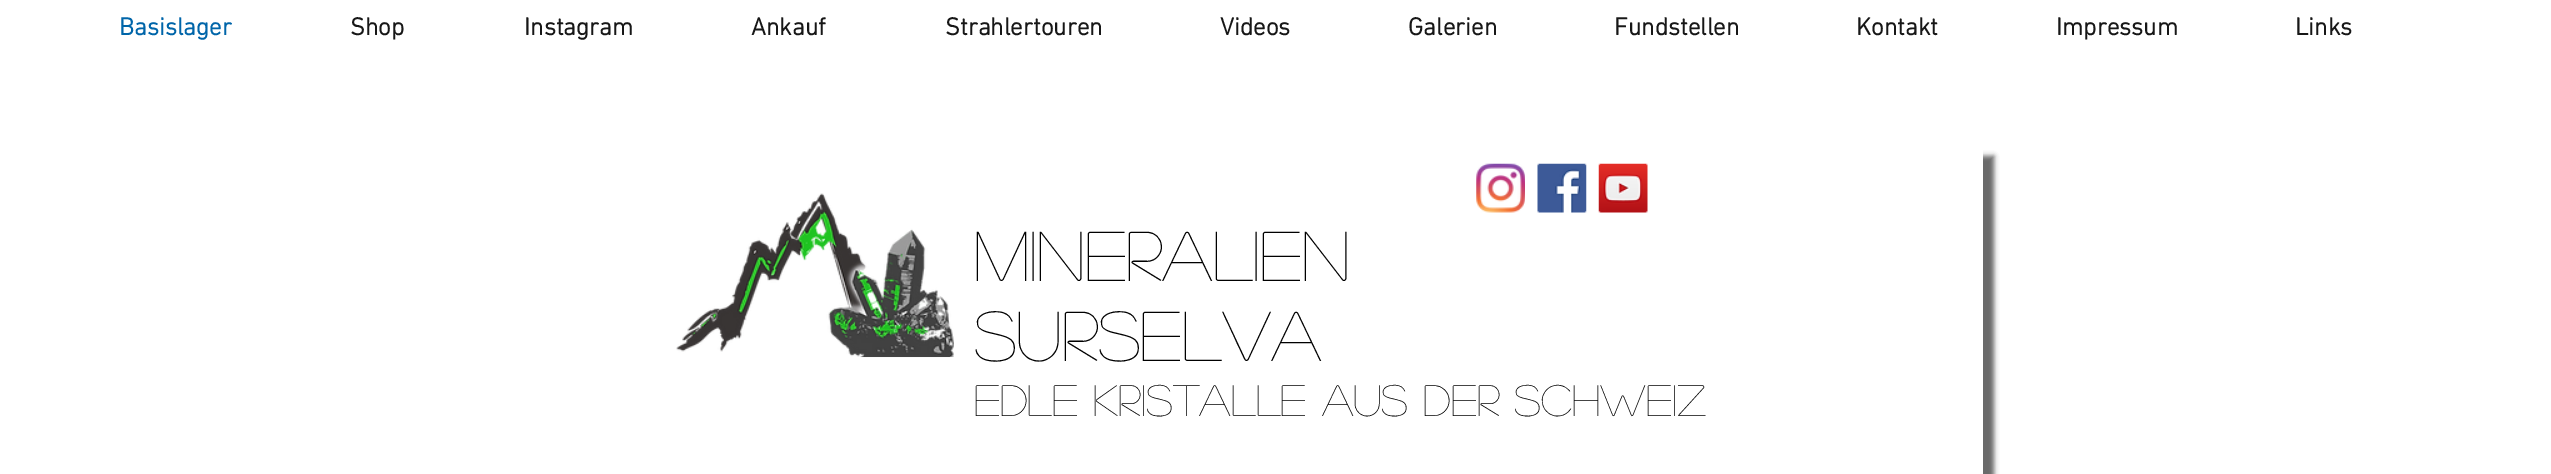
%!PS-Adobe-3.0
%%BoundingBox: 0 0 2551 474
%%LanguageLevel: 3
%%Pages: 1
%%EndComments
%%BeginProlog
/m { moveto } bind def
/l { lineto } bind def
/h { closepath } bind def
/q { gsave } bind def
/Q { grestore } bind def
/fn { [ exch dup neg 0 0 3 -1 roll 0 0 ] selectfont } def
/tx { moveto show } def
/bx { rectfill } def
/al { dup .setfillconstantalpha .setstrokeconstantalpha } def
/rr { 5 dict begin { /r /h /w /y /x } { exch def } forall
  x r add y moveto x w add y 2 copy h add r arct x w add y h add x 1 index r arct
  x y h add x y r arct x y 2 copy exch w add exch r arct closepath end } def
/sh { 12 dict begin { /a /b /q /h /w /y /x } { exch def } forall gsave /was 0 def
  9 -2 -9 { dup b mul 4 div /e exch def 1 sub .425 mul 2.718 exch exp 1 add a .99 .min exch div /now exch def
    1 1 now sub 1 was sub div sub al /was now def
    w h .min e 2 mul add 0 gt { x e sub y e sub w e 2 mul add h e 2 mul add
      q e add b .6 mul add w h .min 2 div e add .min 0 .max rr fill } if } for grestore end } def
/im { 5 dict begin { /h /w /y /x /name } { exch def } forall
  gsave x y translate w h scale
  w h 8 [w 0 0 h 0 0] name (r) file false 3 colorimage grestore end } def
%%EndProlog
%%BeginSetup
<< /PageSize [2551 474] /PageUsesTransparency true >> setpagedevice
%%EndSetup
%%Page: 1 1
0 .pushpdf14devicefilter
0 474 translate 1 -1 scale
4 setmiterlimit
1 setgray
0 0 2551 474 bx
/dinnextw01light-Bold 25 fn
0 0.396 0.663 setrgbcolor
(Basislager) 119 35 tx
0.09 setgray
(Shop) 350 35 tx
(Instagram) 524 35 tx
(Ankauf) 751 35 tx
(Strahlertouren) 945 35 tx
(Videos) 1220 35 tx
(Galerien) 1408 35 tx
(Fundstellen) 1614 35 tx
(Kontakt) 1856 35 tx
(Impressum) 2056 35 tx
(Links) 2295 35 tx
q
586 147 m 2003 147 l 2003 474 l 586 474 l h 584 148 m 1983 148 l 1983 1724 l 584 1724 l h eoclip newpath
0 setgray
595 156 1399 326 0 2.5 0.6 sh
Q
0.9 al
1 setgray
1982 152 1 322 bx
1 al
(image0.raw) 1476 163 49 50 im
(image1.raw) 1537 163 50 50 im
(image2.raw) 1598 163 50 50 im
(image3.raw) 676 193 278 165 im
/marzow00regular-Regular 70 fn
0 setgray
(MINERALIEN) 974 281 tx
(SURSELVA) 974 361 tx
/marzow00regular-Regular 43.75 fn
(Edle Kristalle aus der Schweiz) 974 416 tx
.poppdf14devicefilter showpage
%%EOF
